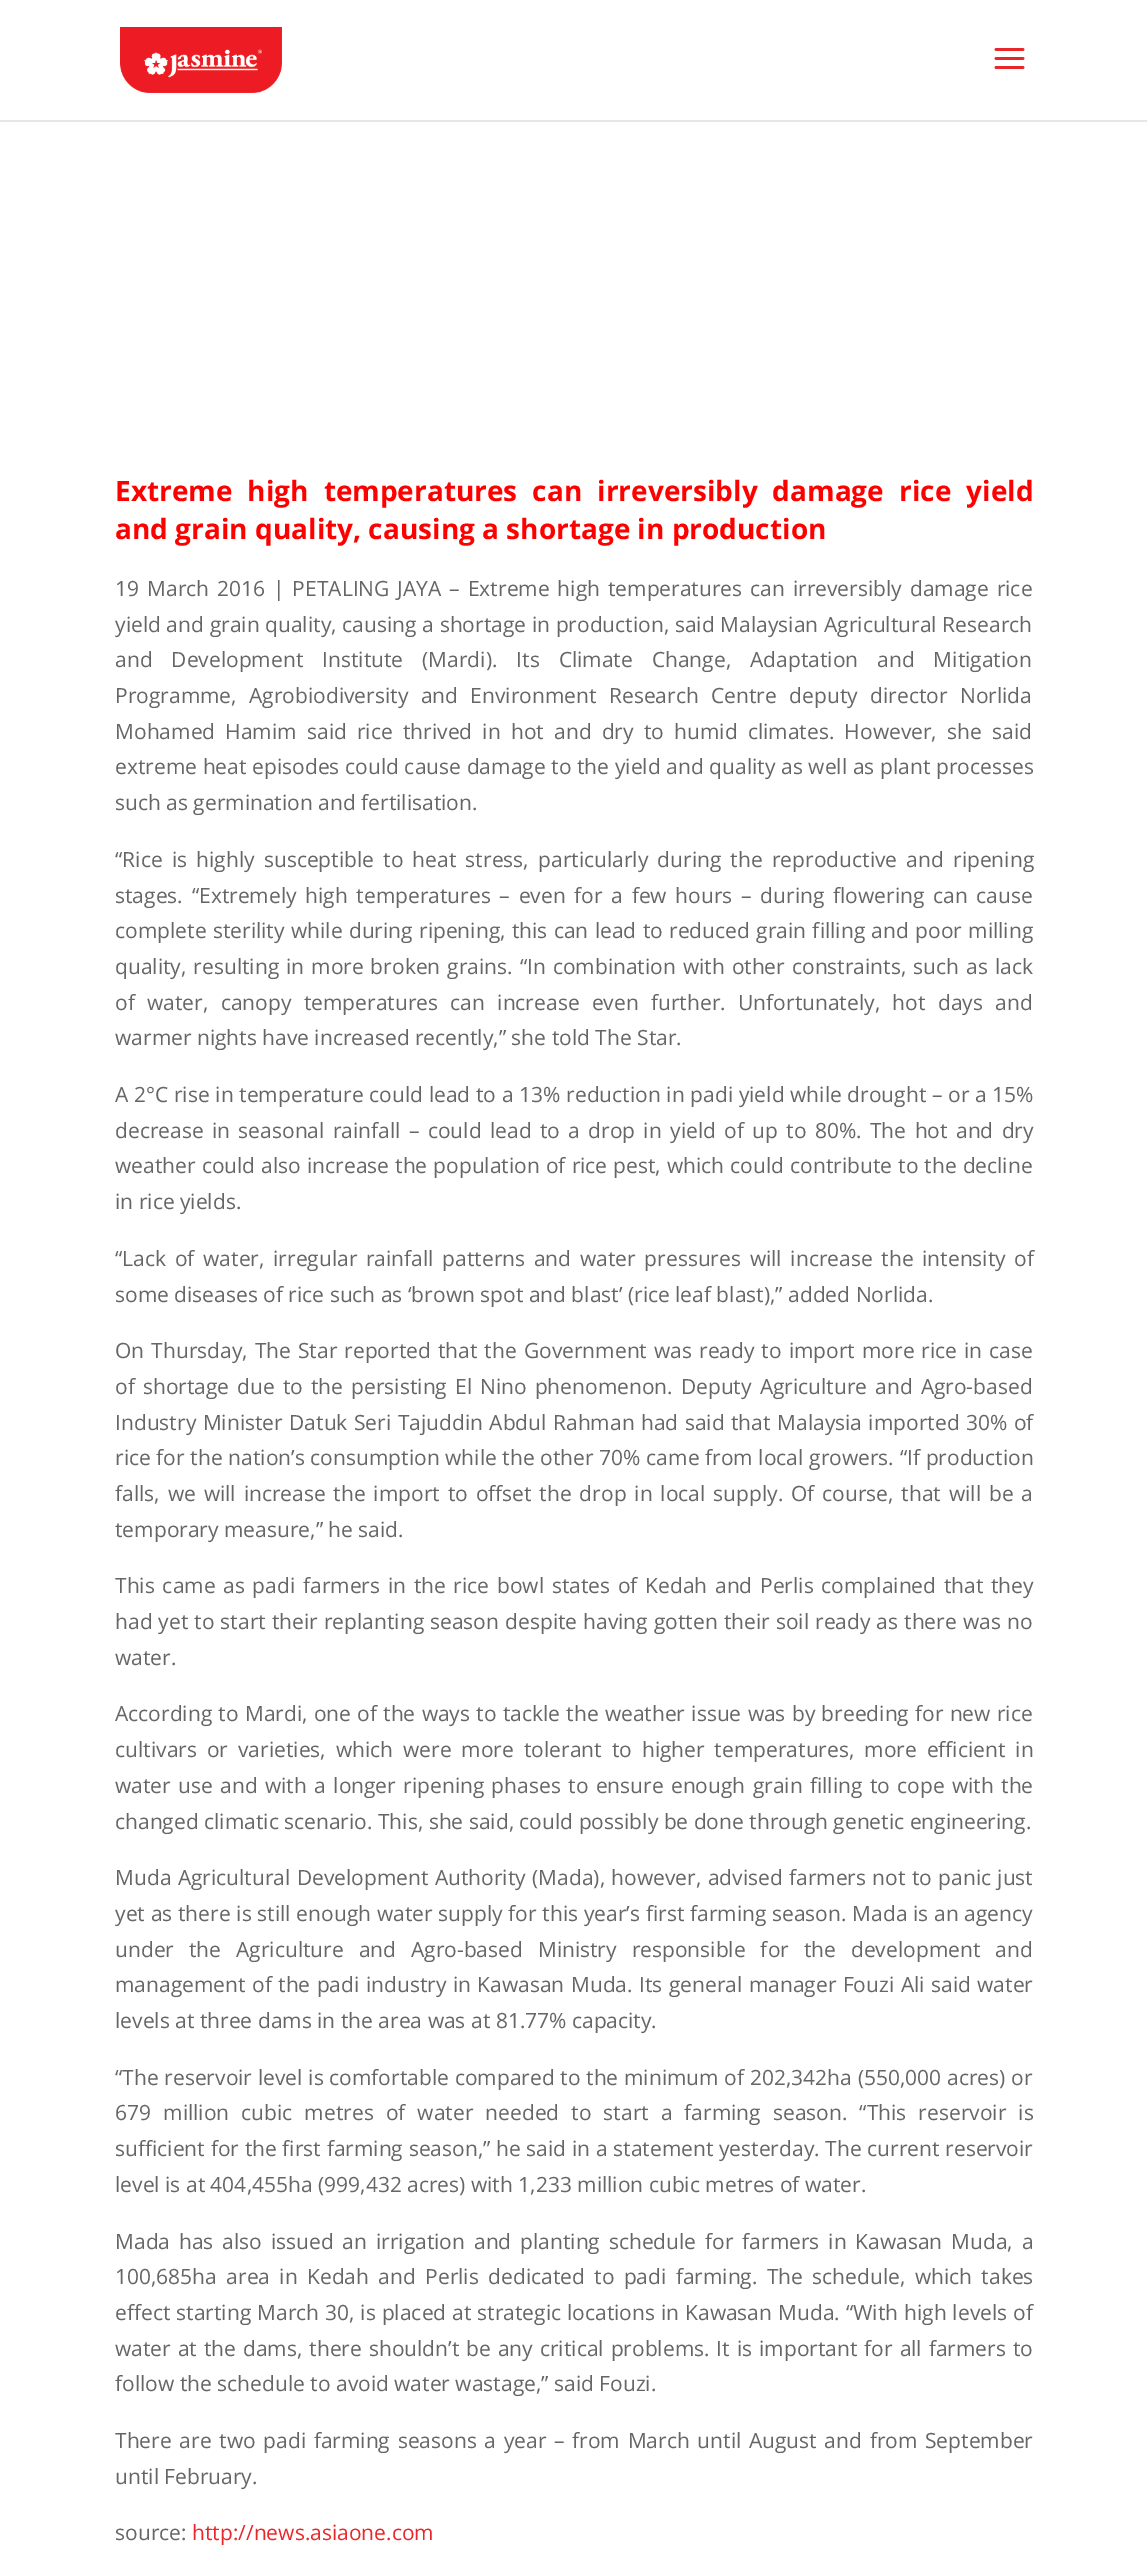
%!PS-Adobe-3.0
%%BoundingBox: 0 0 1147 2555
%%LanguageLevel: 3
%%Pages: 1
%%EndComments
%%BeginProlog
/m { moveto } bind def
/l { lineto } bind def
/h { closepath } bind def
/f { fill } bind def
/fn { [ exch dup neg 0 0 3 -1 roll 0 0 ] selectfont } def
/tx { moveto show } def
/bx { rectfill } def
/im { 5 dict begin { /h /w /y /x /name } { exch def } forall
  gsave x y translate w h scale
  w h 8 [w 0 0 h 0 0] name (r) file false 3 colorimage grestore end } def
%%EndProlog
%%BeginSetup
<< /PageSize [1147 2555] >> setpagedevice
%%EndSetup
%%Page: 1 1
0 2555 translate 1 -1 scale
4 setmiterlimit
1 setgray
0 0 1147 2555 bx
0.902 setgray
0 120 m 0 122 l 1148 122 l 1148 2 l 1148 120 l h f
(image0.raw) 120 27 162 66 im
(image1.raw) 994 48 31 21 im
/OpenSans-Bold 28 fn
1 0 0 setrgbcolor
115 501 m 7.75 0 32 (Extreme high temperatures can irreversibly damage rice yield) widthshow
(and grain quality, causing a shortage in production) 115 539 tx
/OpenSans-Regular 21 fn
0.4 setgray
115 596 m 2.5 0 32 (19 March 2016 | PETALING JAYA – Extreme high temperatures can irreversibly damage rice) widthshow
115 632 m 0.25 0 32 (yield and grain quality, causing a shortage in production, said Malaysian Agricultural Research) widthshow
115 667 m 13.5 0 32 (and Development Institute \(Mardi\). Its Climate Change, Adaptation and Mitigation) widthshow
115 703 m 7 0 32 (Programme, Agrobiodiversity and Environment Research Centre deputy director Norlida) widthshow
115 739 m 4.75 0 32 (Mohamed Hamim said rice thrived in hot and dry to humid climates. However, she said) widthshow
115 774 m 0.25 0 32 (extreme heat episodes could cause damage to the yield and quality as well as plant processes) widthshow
(such as germination and fertilisation.) 115 810 tx
115 867 m 3.75 0 32 (“Rice is highly susceptible to heat stress, particularly during the reproductive and ripening) widthshow
115 903 m 3.25 0 32 (stages. “Extremely high temperatures – even for a few hours – during flowering can cause) widthshow
115 938 m 0.9 0 32 (complete sterility while during ripening, this can lead to reduced grain filling and poor milling) widthshow
115 974 m 1.5 0 32 (quality, resulting in more broken grains. “In combination with other constraints, such as lack) widthshow
115 1010 m 6.9 0 32 (of water, canopy temperatures can increase even further. Unfortunately, hot days and) widthshow
(warmer nights have increased recently,” she told The Star.) 115 1045 tx
115 1102 m 0.25 0 32 (A 2°C rise in temperature could lead to a 13% reduction in padi yield while drought – or a 15%) widthshow
115 1138 m 2.9 0 32 (decrease in seasonal rainfall – could lead to a drop in yield of up to 80%. The hot and dry) widthshow
115 1173 m 0.6 0 32 (weather could also increase the population of rice pest, which could contribute to the decline) widthshow
(in rice yields.) 115 1209 tx
115 1266 m 3.25 0 32 (“Lack of water, irregular rainfall patterns and water pressures will increase the intensity of) widthshow
(some diseases of rice such as ‘brown spot and blast’ \(rice leaf blast\),” added Norlida.) 115 1302 tx
115 1358 m 1.6 0 32 (On Thursday, The Star reported that the Government was ready to import more rice in case) widthshow
115 1394 m 2.6 0 32 (of shortage due to the persisting El Nino phenomenon. Deputy Agriculture and Agro-based) widthshow
115 1430 m 1 0 32 (Industry Minister Datuk Seri Tajuddin Abdul Rahman had said that Malaysia imported 30% of) widthshow
115 1465 m 0.25 0 32 (rice for the nation’s consumption while the other 70% came from local growers. “If production) widthshow
115 1501 m 2.4 0 32 (falls, we will increase the import to offset the drop in local supply. Of course, that will be a) widthshow
(temporary measure,” he said.) 115 1537 tx
115 1593 m 2.25 0 32 (This came as padi farmers in the rice bowl states of Kedah and Perlis complained that they) widthshow
115 1629 m 0.6 0 32 (had yet to start their replanting season despite having gotten their soil ready as there was no) widthshow
(water.) 115 1665 tx
115 1721 m 0.8 0 32 (According to Mardi, one of the ways to tackle the weather issue was by breeding for new rice) widthshow
115 1757 m 4.5 0 32 (cultivars or varieties, which were more tolerant to higher temperatures, more efficient in) widthshow
115 1793 m 1.9 0 32 (water use and with a longer ripening phases to ensure enough grain filling to cope with the) widthshow
(changed climatic scenario. This, she said, could possibly be done through genetic engineering.) 115 1829 tx
115 1885 m 0.9 0 32 (Muda Agricultural Development Authority \(Mada\), however, advised farmers not to panic just) widthshow
115 1921 m 0.3 0 32 (yet as there is still enough water supply for this year’s first farming season. Mada is an agency) widthshow
115 1957 m 9.5 0 32 (under the Agriculture and Agro-based Ministry responsible for the development and) widthshow
115 1992 m 1 0 32 (management of the padi industry in Kawasan Muda. Its general manager Fouzi Ali said water) widthshow
(levels at three dams in the area was at 81.77% capacity.) 115 2028 tx
115 2085 m 0.3 0 32 (“The reservoir level is comfortable compared to the minimum of 202,342ha \(550,000 acres\) or) widthshow
115 2120 m 6.6 0 32 (679 million cubic metres of water needed to start a farming season. “This reservoir is) widthshow
115 2156 m 0.25 0 32 (sufficient for the first farming season,” he said in a statement yesterday. The current reservoir) widthshow
(level is at 404,455ha \(999,432 acres\) with 1,233 million cubic metres of water.) 115 2192 tx
115 2249 m 3.4 0 32 (Mada has also issued an irrigation and planting schedule for farmers in Kawasan Muda, a) widthshow
115 2284 m 3.9 0 32 (100,685ha area in Kedah and Perlis dedicated to padi farming. The schedule, which takes) widthshow
115 2320 m 0.5 0 32 (effect starting March 30, is placed at strategic locations in Kawasan Muda. “With high levels of) widthshow
115 2356 m 1.5 0 32 (water at the dams, there shouldn’t be any critical problems. It is important for all farmers to) widthshow
(follow the schedule to avoid water wastage,” said Fouzi.) 115 2391 tx
115 2448 m 2.25 0 32 (There are two padi farming seasons a year – from March until August and from September) widthshow
(until February.) 115 2484 tx
(source:) 115 2540 tx
0.914 0.149 0.161 setrgbcolor
(http://news.asiaone.com) 192 2540 tx
showpage
%%EOF
